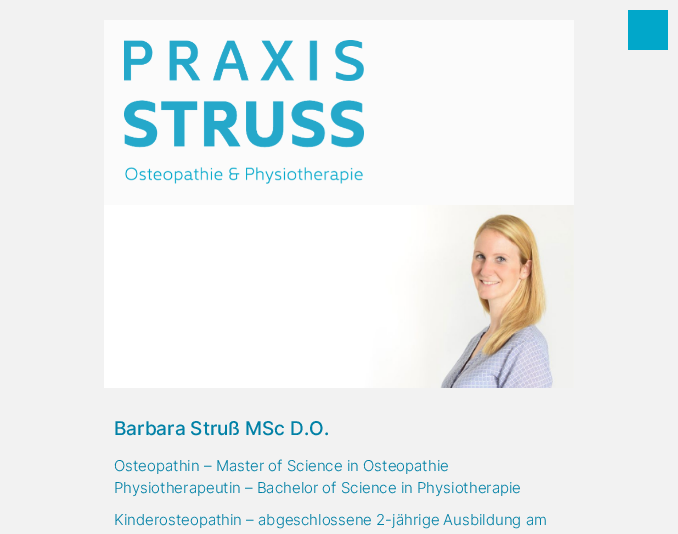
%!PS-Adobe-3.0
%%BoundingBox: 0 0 678 534
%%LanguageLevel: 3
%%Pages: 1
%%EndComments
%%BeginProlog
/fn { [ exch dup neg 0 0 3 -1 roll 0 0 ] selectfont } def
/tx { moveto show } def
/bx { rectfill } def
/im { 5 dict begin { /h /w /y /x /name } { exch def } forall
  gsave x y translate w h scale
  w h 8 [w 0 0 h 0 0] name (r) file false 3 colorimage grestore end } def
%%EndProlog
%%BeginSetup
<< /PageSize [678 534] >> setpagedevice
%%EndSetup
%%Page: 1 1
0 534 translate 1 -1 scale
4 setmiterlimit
0.949 setgray
0 0 678 534 bx
0.004 0.655 0.792 setrgbcolor
628 10 40 40 bx
0.984 setgray
104 20 470 185 bx
(image0.raw) 124 40 240 144 im
(image1.raw) 104 205 470 183 im
/Inter-Medium 19 fn
0.004 0.506 0.651 setrgbcolor
(Barbara Struß MSc D.O.) 114 435 tx
/Inter-Light 15 fn
(Osteopathin – Master of Science in Osteopathie) 114 471 tx
(Physiotherapeutin – Bachelor of Science in Physiotherapie) 114 493 tx
(Kinderosteopathin – abgeschlossene 2-jährige Ausbildung am) 114 525 tx
showpage
%%EOF
